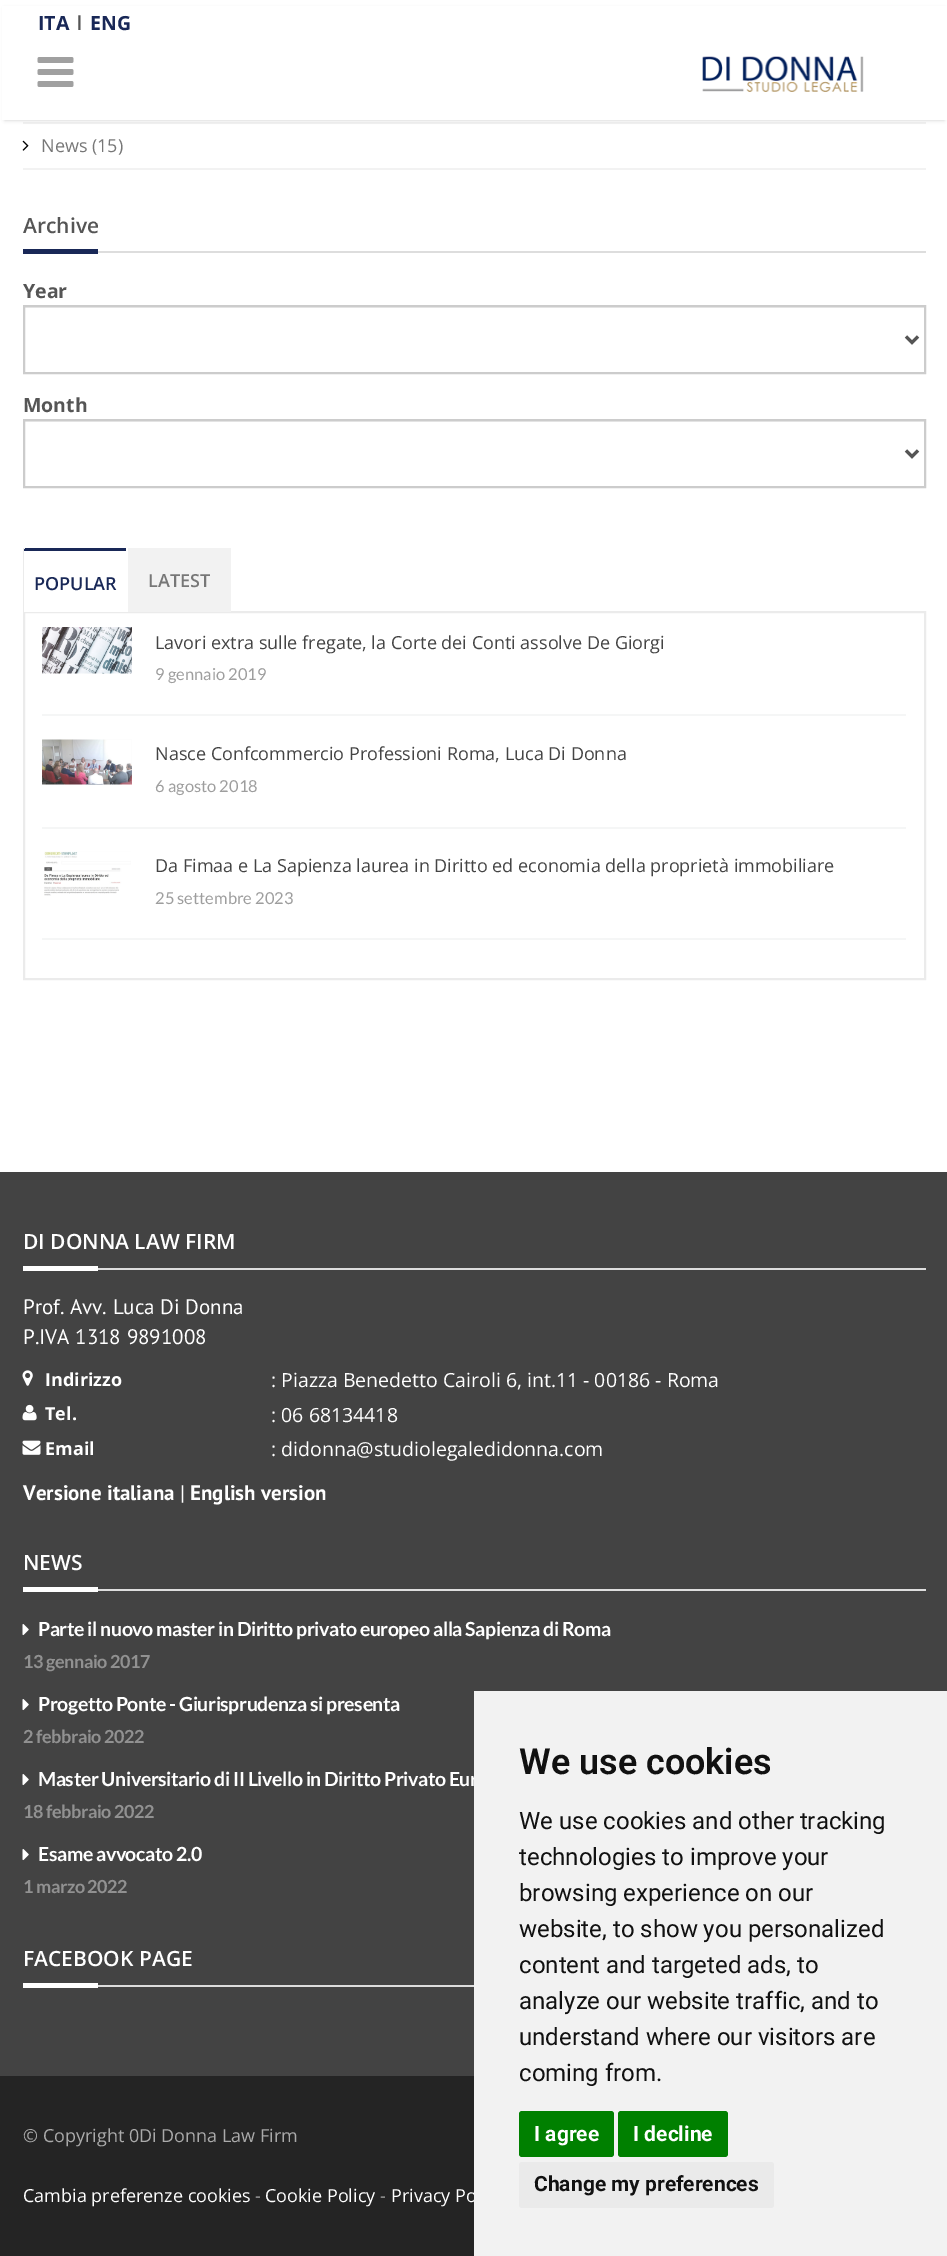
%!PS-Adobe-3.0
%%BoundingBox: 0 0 947 2256
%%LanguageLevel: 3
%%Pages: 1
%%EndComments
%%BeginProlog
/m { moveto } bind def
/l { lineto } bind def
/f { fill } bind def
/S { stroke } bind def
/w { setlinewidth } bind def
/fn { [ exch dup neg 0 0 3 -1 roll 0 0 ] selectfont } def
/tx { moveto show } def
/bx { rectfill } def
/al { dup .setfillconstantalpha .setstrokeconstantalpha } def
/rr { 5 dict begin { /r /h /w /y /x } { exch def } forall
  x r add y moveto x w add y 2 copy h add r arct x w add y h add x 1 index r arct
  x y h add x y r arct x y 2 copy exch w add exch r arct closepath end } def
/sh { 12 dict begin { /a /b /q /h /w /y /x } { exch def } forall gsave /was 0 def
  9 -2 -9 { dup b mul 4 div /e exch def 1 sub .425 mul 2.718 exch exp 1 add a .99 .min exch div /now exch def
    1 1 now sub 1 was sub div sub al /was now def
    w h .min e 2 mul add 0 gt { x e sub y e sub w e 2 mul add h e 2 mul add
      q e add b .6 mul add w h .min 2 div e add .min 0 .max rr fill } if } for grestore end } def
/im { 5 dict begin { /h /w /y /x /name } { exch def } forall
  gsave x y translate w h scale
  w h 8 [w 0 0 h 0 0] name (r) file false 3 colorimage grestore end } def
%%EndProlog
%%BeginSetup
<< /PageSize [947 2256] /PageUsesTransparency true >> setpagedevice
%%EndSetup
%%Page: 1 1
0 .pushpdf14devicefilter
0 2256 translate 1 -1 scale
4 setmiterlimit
1 setgray
0 0 947 2256 bx
0.949 setgray
23 122 903 2 bx
0 setgray
5 9 939 111 0 2 0.2 sh
1 setgray
2 6 945 114 bx
/OpenSans-Bold 19.5 fn
0.098 0.157 0.341 setrgbcolor
(ITA) 38 30 tx
0.333 setgray
(|) 74 30 tx
0.098 0.157 0.341 setrgbcolor
(ENG) 90 30 tx
1 setgray
78 30 3 5 bx
(image0.raw) 37 57 37 30 im
(image1.raw) 702 56 162 36 im
0.949 setgray
23 168 903 2 bx
(image2.raw) 22 140 7 11 im
/OpenSans-Regular 18 fn
0.467 setgray
(News \(15\)) 41 152 tx
0.867 setgray
98 251 828 2 bx
/OpenSans-SemiBold 21 fn
0.333 setgray
(Archive) 23 233 tx
0.098 0.157 0.341 setrgbcolor
23 249 75 5 bx
/OpenSans-Bold 19.5 fn
0.333 setgray
(Year) 23 298 tx
0.925 setgray
24 307 900 1 bx
0.8 setgray
2 w
24 306 901 67 rectstroke
0.333 setgray
3 w
906 336.5 m 912 342.5 l 918 336.5 l S
(Month) 23 412 tx
0.925 setgray
24 421 900 1 bx
0.8 setgray
2 w
24 420 901 67 rectstroke
0.333 setgray
3 w
906 450.5 m 912 456.5 l 918 450.5 l S
0.098 0.157 0.341 setrgbcolor
23 548 105 1 bx
0.922 setgray
2 w
24 612 901 367 rectstroke
1 setgray
126 548 2 64 bx
0.922 setgray
23 548 2 64 bx
1 setgray
24 551 102 61 bx
0.098 0.157 0.341 setrgbcolor
24 549 102 2 bx
/OpenSans-SemiBold 18 fn
(POPULAR) 34 590 tx
0.949 setgray
128 548 103 64 bx
0.467 setgray
(LATEST) 148 587 tx
0.961 0.965 0.965 setrgbcolor
42 714 864 2 bx
(image3.raw) 42 627 90 47 im
/OpenSans-Regular 18 fn
0.267 setgray
(Lavori extra sulle fregate, la Corte dei Conti assolve De Giorgi) 155 649 tx
/Lato-Regular 16.5 fn
0.62 setgray
(9 gennaio 2019) 155 680 tx
0.961 0.965 0.965 setrgbcolor
42 827 864 2 bx
(image4.raw) 42 739 90 46 im
/OpenSans-Regular 18 fn
0.267 setgray
(Nasce Confcommercio Professioni Roma, Luca Di Donna) 155 760 tx
/Lato-Regular 16.5 fn
0.62 setgray
(6 agosto 2018) 155 792 tx
0.961 0.965 0.965 setrgbcolor
42 938 864 2 bx
(image5.raw) 44 851 87 45 im
/OpenSans-Regular 18 fn
0.267 setgray
(Da Fimaa e La Sapienza laurea in Diritto ed economia della proprietà immobiliare) 155 872 tx
/Lato-Regular 16.5 fn
0.62 setgray
(25 settembre 2023) 155 904 tx
0.263 setgray
0 1172 947 904 bx
0.867 setgray
98 1268 828 2 bx
/OpenSans-SemiBold 21 fn
1 setgray
(DI DONNA LAW FIRM) 23 1249 tx
23 1266 75 5 bx
/PTSans-Regular 21 fn
(Prof. Avv. Luca Di Donna) 23 1314 tx
(P.IVA 1318 9891008) 23 1344 tx
(image6.raw) 22 1370 11 16 im
/OpenSans-Bold 18 fn
(Indirizzo) 45 1386 tx
/OpenSans-Regular 19.5 fn
(: Piazza Benedetto Cairoli 6, int.11 - 00186 - Roma) 271 1387 tx
(image7.raw) 22 1404 15 17 im
/OpenSans-Bold 18 fn
(Tel.) 45 1420 tx
/OpenSans-Regular 19.5 fn
(: 06 68134418) 271 1422 tx
(image8.raw) 22 1440 19 15 im
/OpenSans-Bold 18 fn
(Email) 45 1455 tx
/OpenSans-Regular 19.5 fn
(: didonna@studiolegaledidonna.com) 271 1456 tx
/PTSans-Bold 21 fn
(Versione italiana) 23 1500 tx
/PTSans-Regular 21 fn
(|) 180 1500 tx
/PTSans-Bold 21 fn
(English version) 190 1500 tx
0.867 setgray
98 1589 828 2 bx
/OpenSans-SemiBold 21 fn
1 setgray
(NEWS) 23 1570 tx
23 1587 75 5 bx
/Lato-Bold 19.5 fn
38 1636 m -0.45 0 (Parte il nuovo master in Diritto privato europeo alla Sapienza di Roma) ashow
/Lato-Bold 18 fn
0.569 setgray
23 1668 m -0.45 0 (13 gennaio 2017) ashow
(image9.raw) 22 1624 7 12 im
/Lato-Bold 19.5 fn
1 setgray
38 1711 m -0.45 0 (Progetto Ponte - Giurisprudenza si presenta) ashow
/Lato-Bold 18 fn
0.569 setgray
23 1743 m -0.45 0 (2 febbraio 2022) ashow
(image9.raw) 22 1699 7 12 im
/Lato-Bold 19.5 fn
1 setgray
38 1786 m -0.45 0 (Master Universitario di II Livello in Diritto Privato Eur) ashow
/Lato-Bold 18 fn
0.569 setgray
23 1818 m -0.45 0 (18 febbraio 2022) ashow
(image9.raw) 22 1774 7 12 im
/Lato-Bold 19.5 fn
1 setgray
38 1861 m -0.45 0 (Esame avvocato 2.0) ashow
/Lato-Bold 18 fn
0.569 setgray
23 1893 m -0.45 0 (1 marzo 2022) ashow
(image9.raw) 22 1849 7 12 im
0.867 setgray
98 1985 376 2 bx
/OpenSans-SemiBold 21 fn
1 setgray
(FACEBOOK PAGE) 23 1966 tx
23 1983 75 5 bx
0.141 setgray
0 2076 474 180 bx
/OpenSans-Regular 18 fn
0.667 setgray
(© Copyright 0Di Donna Law Firm) 23 2142 tx
1 setgray
(Cambia preferenze cookies) 23 2202 tx
0.667 setgray
(-) 255 2202 tx
1 setgray
(Cookie Policy) 265 2202 tx
0.667 setgray
(-) 380 2202 tx
1 setgray
(Privacy Po) 391 2202 tx
0.949 setgray
474 1691 473 565 bx
/Roboto-SemiBold 36 fn
0.067 setgray
(We use cookies) 519 1774 tx
/Roboto-Regular 24 fn
(We use cookies and other tracking) 519 1829 tx
(technologies to improve your) 519 1865 tx
(browsing experience on our) 519 1901 tx
(website, to show you personalized) 519 1937 tx
(content and targeted ads, to) 519 1973 tx
(analyze our website traffic, and to) 519 2009 tx
(understand where our visitors are) 519 2045 tx
(coming from.) 519 2081 tx
0 0.502 0 setrgbcolor
519 2111 95 46 3 rr f
/Roboto-Bold 21 fn
1 setgray
(I agree) 534 2141 tx
0 0.502 0 setrgbcolor
618 2111 110 46 3 rr f
1 setgray
(I decline) 633 2141 tx
0.918 setgray
519 2162 255 46 3 rr f
0.067 setgray
(Change my preferences) 534 2191 tx
.poppdf14devicefilter showpage
%%EOF
